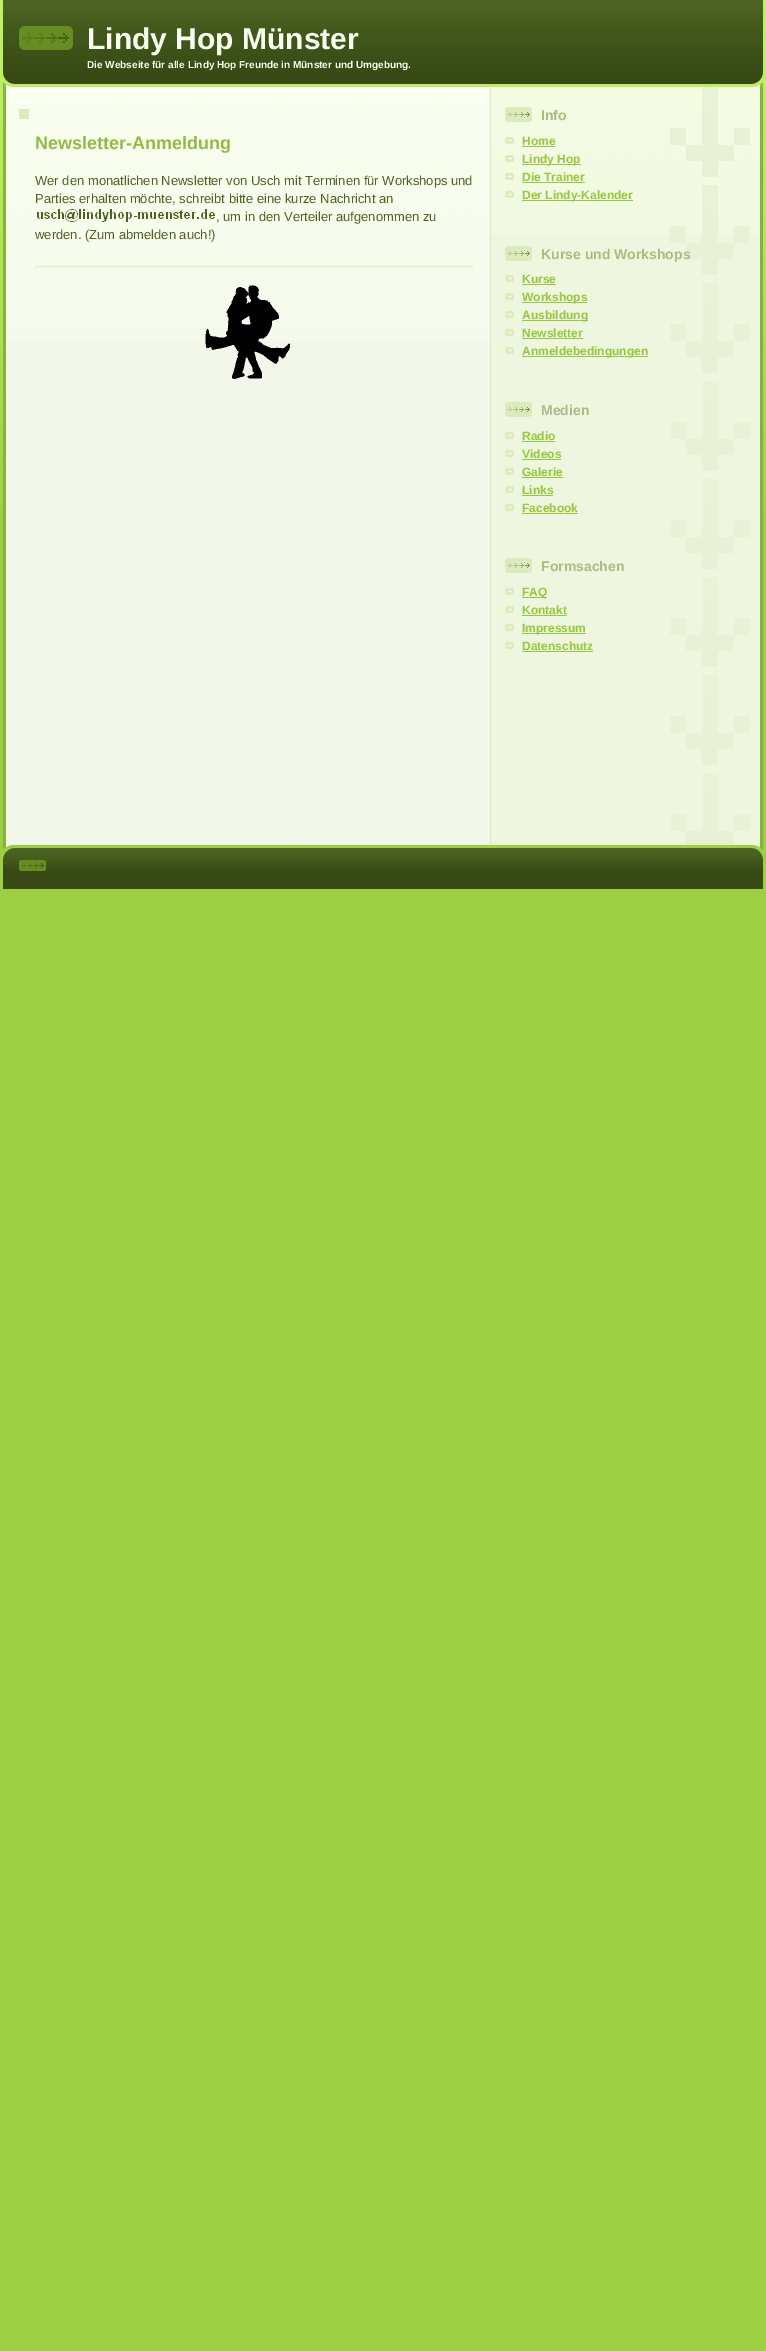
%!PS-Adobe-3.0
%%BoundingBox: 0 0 766 2351
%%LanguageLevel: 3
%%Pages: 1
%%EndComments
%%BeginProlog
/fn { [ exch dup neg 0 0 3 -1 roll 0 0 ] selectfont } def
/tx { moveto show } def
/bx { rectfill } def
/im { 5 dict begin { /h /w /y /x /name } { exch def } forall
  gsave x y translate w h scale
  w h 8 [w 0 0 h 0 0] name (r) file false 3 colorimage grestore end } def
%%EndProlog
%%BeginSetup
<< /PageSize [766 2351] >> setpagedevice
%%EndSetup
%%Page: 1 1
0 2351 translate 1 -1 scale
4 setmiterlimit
0.616 0.808 0.263 setrgbcolor
0 0 766 2351 bx
(image0.raw) 0 0 766 505 im
(image1.raw) 3 72 760 15 im
0.294 0.388 0.125 setrgbcolor
3 0 760 13 bx
(image2.raw) 3 13 760 59 im
(image3.raw) 19 26 54 24 im
/LiberationSans-Bold 30 fn
0.976 0.996 0.933 setrgbcolor
(Lindy Hop Münster) 87 49 tx
/LiberationSans-Bold 10 fn
(Die Webseite für alle Lindy Hop Freunde in Münster und Umgebung.) 87 68 tx
(image4.raw) 3 87 760 758 im
(image5.raw) 6 87 483 254 im
0.859 0.922 0.741 setrgbcolor
19 109 10 10 bx
0.91 0.957 0.827 setrgbcolor
35 265 438 3 bx
/LiberationSans-Bold 18 fn
0.573 0.729 0.278 setrgbcolor
(Newsletter-Anmeldung) 35 149 tx
/LiberationSans-Regular 13 fn
0.294 0.388 0.125 setrgbcolor
(Wer den monatlichen Newsletter von Usch mit Terminen für Workshops und) 35 185 tx
(Parties erhalten möchte, schreibt bitte eine kurze Nachricht an) 35 203 tx
(image6.raw) 37 209 178 13 im
(, um in den Verteiler aufgenommen zu) 216 221 tx
(werden. \(Zum abmelden auch!\)) 35 239 tx
(image7.raw) 205 285 85 94 im
(image8.raw) 491 87 269 148 im
(image9.raw) 670 87 80 758 im
(image10.raw) 505 107 27 15 im
/LiberationSans-Bold 14 fn
0.663 0.741 0.502 setrgbcolor
(Info) 541 120 tx
(image11.raw) 505 137 9 7 im
/LiberationSans-Bold 12 fn
0.588 0.78 0.239 setrgbcolor
(Home) 522 145 tx
522 146 33 1 bx
(image12.raw) 505 155 9 7 im
522 164 59 1 bx
(Lindy Hop) 522 163 tx
(image13.raw) 505 173 9 7 im
(Die Trainer) 522 181 tx
522 182 63 1 bx
(image14.raw) 505 191 9 7 im
522 200 111 1 bx
(Der Lindy-Kalender) 522 199 tx
(image15.raw) 505 246 27 15 im
/LiberationSans-Bold 14 fn
0.663 0.741 0.502 setrgbcolor
(Kurse und Workshops) 541 259 tx
(image16.raw) 505 275 9 7 im
/LiberationSans-Bold 12 fn
0.588 0.78 0.239 setrgbcolor
(Kurse) 522 283 tx
522 284 34 1 bx
(image16.raw) 505 293 9 7 im
522 302 65 1 bx
(Workshops) 522 301 tx
(image16.raw) 505 311 9 7 im
522 320 66 1 bx
(Ausbildung) 522 319 tx
(image16.raw) 505 329 9 7 im
(Newsletter) 522 337 tx
522 338 61 1 bx
(image16.raw) 505 347 9 7 im
522 356 126 1 bx
(Anmeldebedingungen) 522 355 tx
(image15.raw) 505 402 27 15 im
/LiberationSans-Bold 14 fn
0.663 0.741 0.502 setrgbcolor
(Medien) 541 415 tx
(image16.raw) 505 432 9 7 im
/LiberationSans-Bold 12 fn
0.588 0.78 0.239 setrgbcolor
(Radio) 522 440 tx
522 441 33 1 bx
(image16.raw) 505 450 9 7 im
(Videos) 522 458 tx
522 459 39 1 bx
(image16.raw) 505 468 9 7 im
(Galerie) 522 476 tx
522 477 41 1 bx
(image16.raw) 505 486 9 7 im
(Links) 522 494 tx
522 495 31 1 bx
(image16.raw) 505 504 9 7 im
(Facebook) 522 512 tx
522 513 56 1 bx
(image15.raw) 505 558 27 15 im
/LiberationSans-Bold 14 fn
0.663 0.741 0.502 setrgbcolor
(Formsachen) 541 571 tx
(image16.raw) 505 588 9 7 im
0.588 0.78 0.239 setrgbcolor
522 597 25 1 bx
/LiberationSans-Bold 12 fn
(FAQ) 522 596 tx
(image16.raw) 505 606 9 7 im
(Kontakt) 522 614 tx
522 615 45 1 bx
(image16.raw) 505 624 9 7 im
522 633 64 1 bx
(Impressum) 522 632 tx
(image16.raw) 505 642 9 7 im
(Datenschutz) 522 650 tx
522 651 71 1 bx
(image17.raw) 3 845 760 15 im
0.216 0.286 0.082 setrgbcolor
3 870 760 19 bx
(image18.raw) 3 860 760 10 im
(image19.raw) 19 860 27 11 im
showpage
%%EOF
